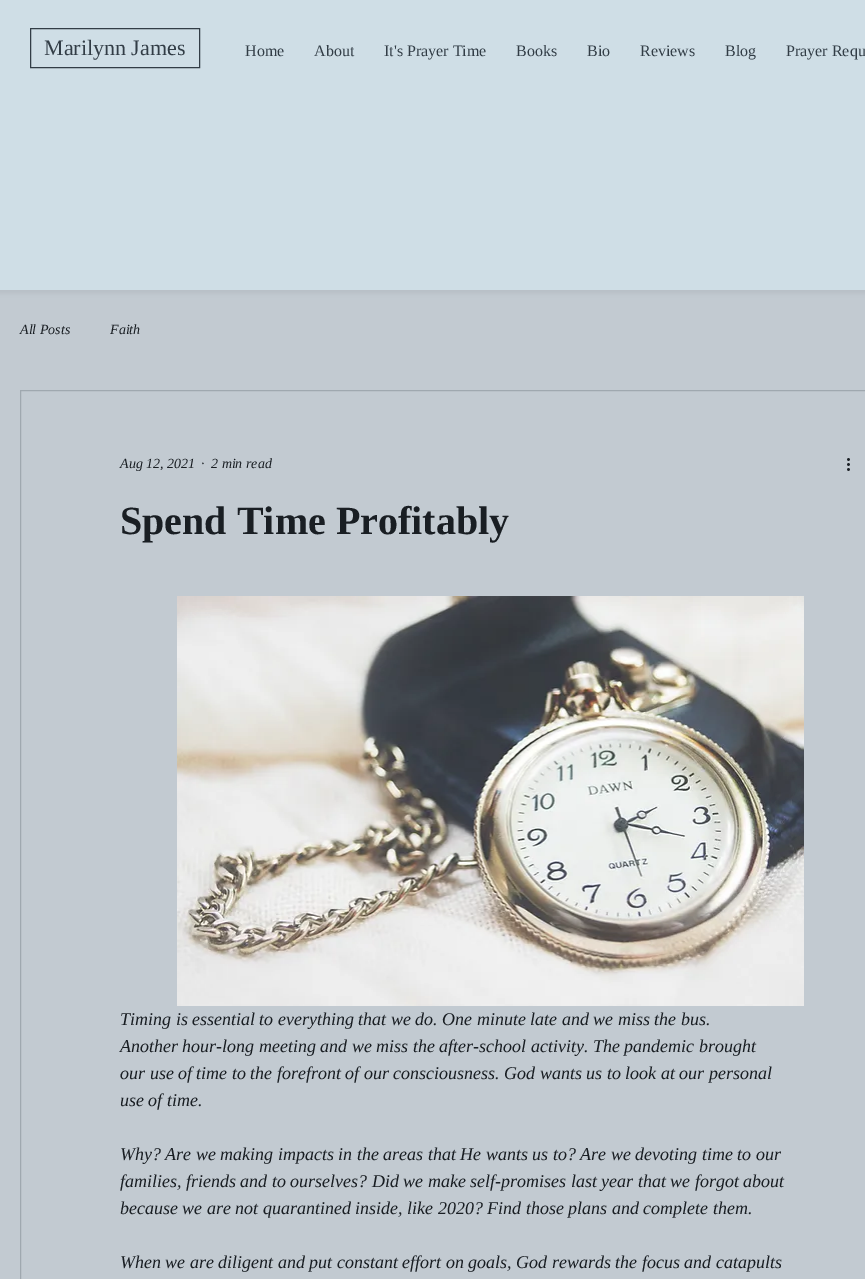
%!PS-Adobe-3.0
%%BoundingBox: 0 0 865 1279
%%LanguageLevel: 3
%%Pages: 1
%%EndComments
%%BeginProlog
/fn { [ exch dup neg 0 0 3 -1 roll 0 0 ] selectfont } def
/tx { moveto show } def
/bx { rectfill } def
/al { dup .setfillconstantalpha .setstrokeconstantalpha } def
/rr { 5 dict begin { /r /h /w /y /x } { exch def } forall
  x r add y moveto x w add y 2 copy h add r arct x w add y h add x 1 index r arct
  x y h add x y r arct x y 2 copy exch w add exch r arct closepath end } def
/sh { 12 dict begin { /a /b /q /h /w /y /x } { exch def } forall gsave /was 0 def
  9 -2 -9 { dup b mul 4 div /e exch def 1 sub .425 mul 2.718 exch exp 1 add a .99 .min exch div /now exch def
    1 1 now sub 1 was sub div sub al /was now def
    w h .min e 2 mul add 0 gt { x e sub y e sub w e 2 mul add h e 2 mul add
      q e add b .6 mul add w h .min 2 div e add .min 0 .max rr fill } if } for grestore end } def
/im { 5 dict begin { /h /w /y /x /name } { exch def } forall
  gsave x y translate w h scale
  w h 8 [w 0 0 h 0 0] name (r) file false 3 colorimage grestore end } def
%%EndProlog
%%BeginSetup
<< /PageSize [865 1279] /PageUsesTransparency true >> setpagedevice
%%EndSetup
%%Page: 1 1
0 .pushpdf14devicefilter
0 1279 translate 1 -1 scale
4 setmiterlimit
0.761 0.792 0.82 setrgbcolor
0 0 865 1279 bx
0 setgray
-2 -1 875 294 0 2.5 0.05 sh
0.812 0.871 0.902 setrgbcolor
0 0 865 290 bx
0.196 0.239 0.275 setrgbcolor
30.5 28.5 169 39 rectstroke
/LiberationSerif-Regular 22 fn
(Marilynn James) 44 55 tx
/LiberationSerif-Regular 16 fn
(Home) 245 56 tx
(About) 314 56 tx
(It's Prayer Time) 384 56 tx
(Books) 516 56 tx
(Bio) 587 56 tx
(Reviews) 640 56 tx
(Blog) 725 56 tx
(Prayer Requ) 786 56 tx
/LiberationSerif-Italic 14 fn
0.098 0.118 0.137 setrgbcolor
(All Posts) 20 334 tx
(Faith) 110 334 tx
0.624 0.659 0.686 setrgbcolor
20.5 390.5 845 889 rectstroke
0.098 0.118 0.137 setrgbcolor
(Aug 12, 2021) 120 468 tx
(·) 201 468 tx
(2 min read) 211 468 tx
(image0.raw) 847 458 3 13 im
/LiberationSerif-Bold 40 fn
(Spend Time Profitably) 120 534 tx
(image1.raw) 177 596 627 410 im
/LiberationSerif-Italic 18 fn
(Timing is essential to everything that we do. One minute late and we miss the bus.) 120 1025 tx
(Another hour-long meeting and we miss the after-school activity. The pandemic brought) 120 1052 tx
(our use of time to the forefront of our consciousness. God wants us to look at our personal) 120 1079 tx
(use of time.) 120 1106 tx
(Why? Are we making impacts in the areas that He wants us to? Are we devoting time to our) 120 1160 tx
(families, friends and to ourselves? Did we make self-promises last year that we forgot about) 120 1187 tx
(because we are not quarantined inside, like 2020? Find those plans and complete them.) 120 1214 tx
(When we are diligent and put constant effort on goals, God rewards the focus and catapults) 120 1268 tx
.poppdf14devicefilter showpage
%%EOF
